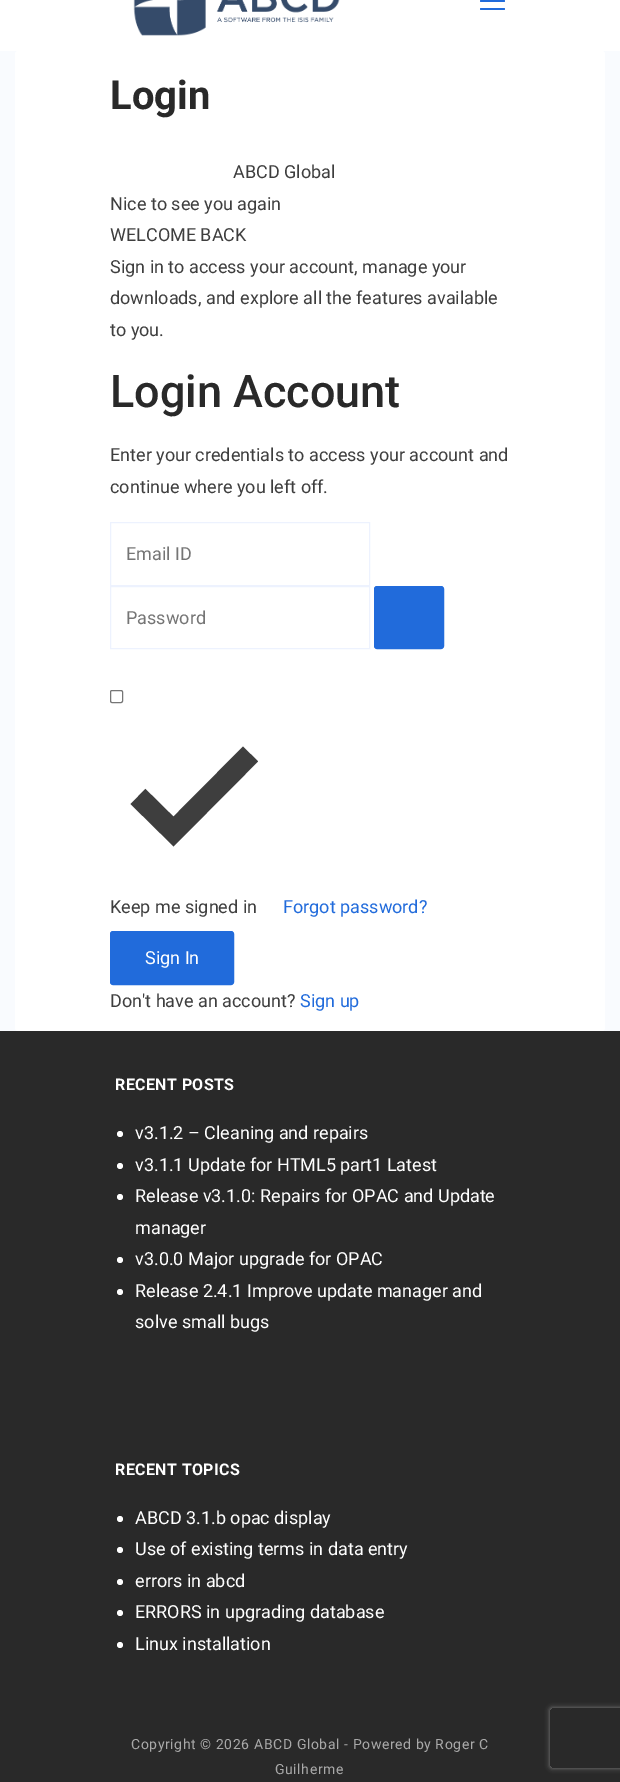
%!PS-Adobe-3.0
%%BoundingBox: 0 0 620 1782
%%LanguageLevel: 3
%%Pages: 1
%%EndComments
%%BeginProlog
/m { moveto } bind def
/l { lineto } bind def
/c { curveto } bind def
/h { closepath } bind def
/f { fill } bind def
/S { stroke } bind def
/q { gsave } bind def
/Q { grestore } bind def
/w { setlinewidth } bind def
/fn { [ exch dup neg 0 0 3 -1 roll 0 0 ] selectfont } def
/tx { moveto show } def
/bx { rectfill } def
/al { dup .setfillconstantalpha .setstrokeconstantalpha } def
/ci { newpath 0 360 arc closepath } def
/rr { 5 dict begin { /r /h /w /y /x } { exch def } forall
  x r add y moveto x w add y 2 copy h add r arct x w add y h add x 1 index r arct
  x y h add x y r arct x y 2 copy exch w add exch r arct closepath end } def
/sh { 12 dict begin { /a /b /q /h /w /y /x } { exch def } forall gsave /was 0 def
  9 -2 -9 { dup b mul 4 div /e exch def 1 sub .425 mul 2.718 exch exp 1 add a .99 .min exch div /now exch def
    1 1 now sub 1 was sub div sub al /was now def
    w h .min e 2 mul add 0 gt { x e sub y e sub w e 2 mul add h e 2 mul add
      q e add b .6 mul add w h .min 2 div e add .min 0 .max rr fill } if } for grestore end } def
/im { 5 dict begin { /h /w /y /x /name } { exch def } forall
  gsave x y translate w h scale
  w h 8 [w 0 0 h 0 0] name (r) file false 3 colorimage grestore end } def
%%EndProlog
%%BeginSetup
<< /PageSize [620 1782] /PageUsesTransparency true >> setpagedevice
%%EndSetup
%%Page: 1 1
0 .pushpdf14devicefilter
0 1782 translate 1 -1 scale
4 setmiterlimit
0.976 0.984 0.996 setrgbcolor
0 0 620 1782 bx
1 setgray
0 0 620 51 bx
(image0.raw) 133 0 207 36 im
0.129 0.42 0.859 setrgbcolor
480 0 25 2 1 rr f
480 8 25 2 1 rr f
1 setgray
15 51 590 980 3 rr f
/Roboto-Bold 40 fn
0.161 setgray
(Login) 110 109 tx
/Roboto-Regular 18 fn
0.243 setgray
(ABCD Global) 233 178 tx
(Nice to see you again) 110 210 tx
(WELCOME BACK) 110 241 tx
(Sign in to access your account, manage your) 110 273 tx
(downloads, and explore all the features available) 110 304 tx
(to you.) 110 336 tx
/Roboto-Medium 45 fn
0.161 setgray
(Login Account) 110 407 tx
/Roboto-Regular 18 fn
0.243 setgray
(Enter your credentials to access your account and) 110 461 tx
(continue where you left off.) 110 493 tx
0.929 0.949 0.996 setrgbcolor
110.5 522.5 259 63 rectstroke
0.459 setgray
(Email ID) 126 560 tx
0.929 0.949 0.996 setrgbcolor
110.5 586.5 259 62 rectstroke
0.459 setgray
(Password) 126 624 tx
0.129 0.42 0.859 setrgbcolor
374.5 586.5 69 62 2.5 rr q f Q
S
0.463 setgray
110.5 690.5 12 12 1.5 rr S
0.243 setgray
21.1 w
250.5 754 m 173.5 831.5 l 138 796.5 l S
(Keep me signed in) 110 913 tx
0.129 0.42 0.859 setrgbcolor
(Forgot password?) 283 913 tx
110.5 931.5 123 53 2.5 rr q f Q
1 w
S
1 setgray
(Sign In) 145 964 tx
0.243 setgray
(Don't have an account?) 110 1007 tx
0.129 0.42 0.859 setrgbcolor
(Sign up) 300 1007 tx
0.161 setgray
0 1031 620 751 bx
/Roboto-Bold 16 fn
1 setgray
115 1090 m 0.4 0 (RECENT POSTS) ashow
120 1134 3 ci f
/Roboto-Regular 18 fn
(v3.1.2 – Cleaning and repairs) 135 1139 tx
120 1166 3 ci f
(v3.1.1 Update for HTML5 part1 Latest) 135 1171 tx
120 1197 3 ci f
(Release v3.1.0: Repairs for OPAC and Update) 135 1202 tx
(manager) 135 1234 tx
120 1260 3 ci f
(v3.0.0 Major upgrade for OPAC) 135 1265 tx
120 1292 3 ci f
(Release 2.4.1 Improve update manager and) 135 1297 tx
(solve small bugs) 135 1328 tx
/Roboto-Bold 16 fn
115 1475 m 0.4 0 (RECENT TOPICS) ashow
120 1519 3 ci f
/Roboto-Regular 18 fn
(ABCD 3.1.b opac display) 135 1524 tx
120 1550 3 ci f
(Use of existing terms in data entry) 135 1555 tx
120 1582 3 ci f
(errors in abcd) 135 1587 tx
120 1613 3 ci f
(ERRORS in upgrading database) 135 1618 tx
120 1645 3 ci f
(Linux installation) 135 1650 tx
/Roboto-Regular 14 fn
0.663 setgray
131 1749 m 0.6 0 (Copyright © 2026 ABCD Global - Powered by Roger C) ashow
275 1774 m 0.6 0 (Guilherme) ashow
q
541 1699 m 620 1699 l 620 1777 l 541 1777 l h 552 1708 m 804 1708 l 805 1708 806 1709 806 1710 c 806 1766 l 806 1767 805 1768 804 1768 c 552 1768 l 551 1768 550 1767 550 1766 c 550 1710 l 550 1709 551 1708 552 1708 c h eoclip newpath
0.502 setgray
550 1708 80 60 2 2.5 1 sh
Q
.poppdf14devicefilter showpage
%%EOF
